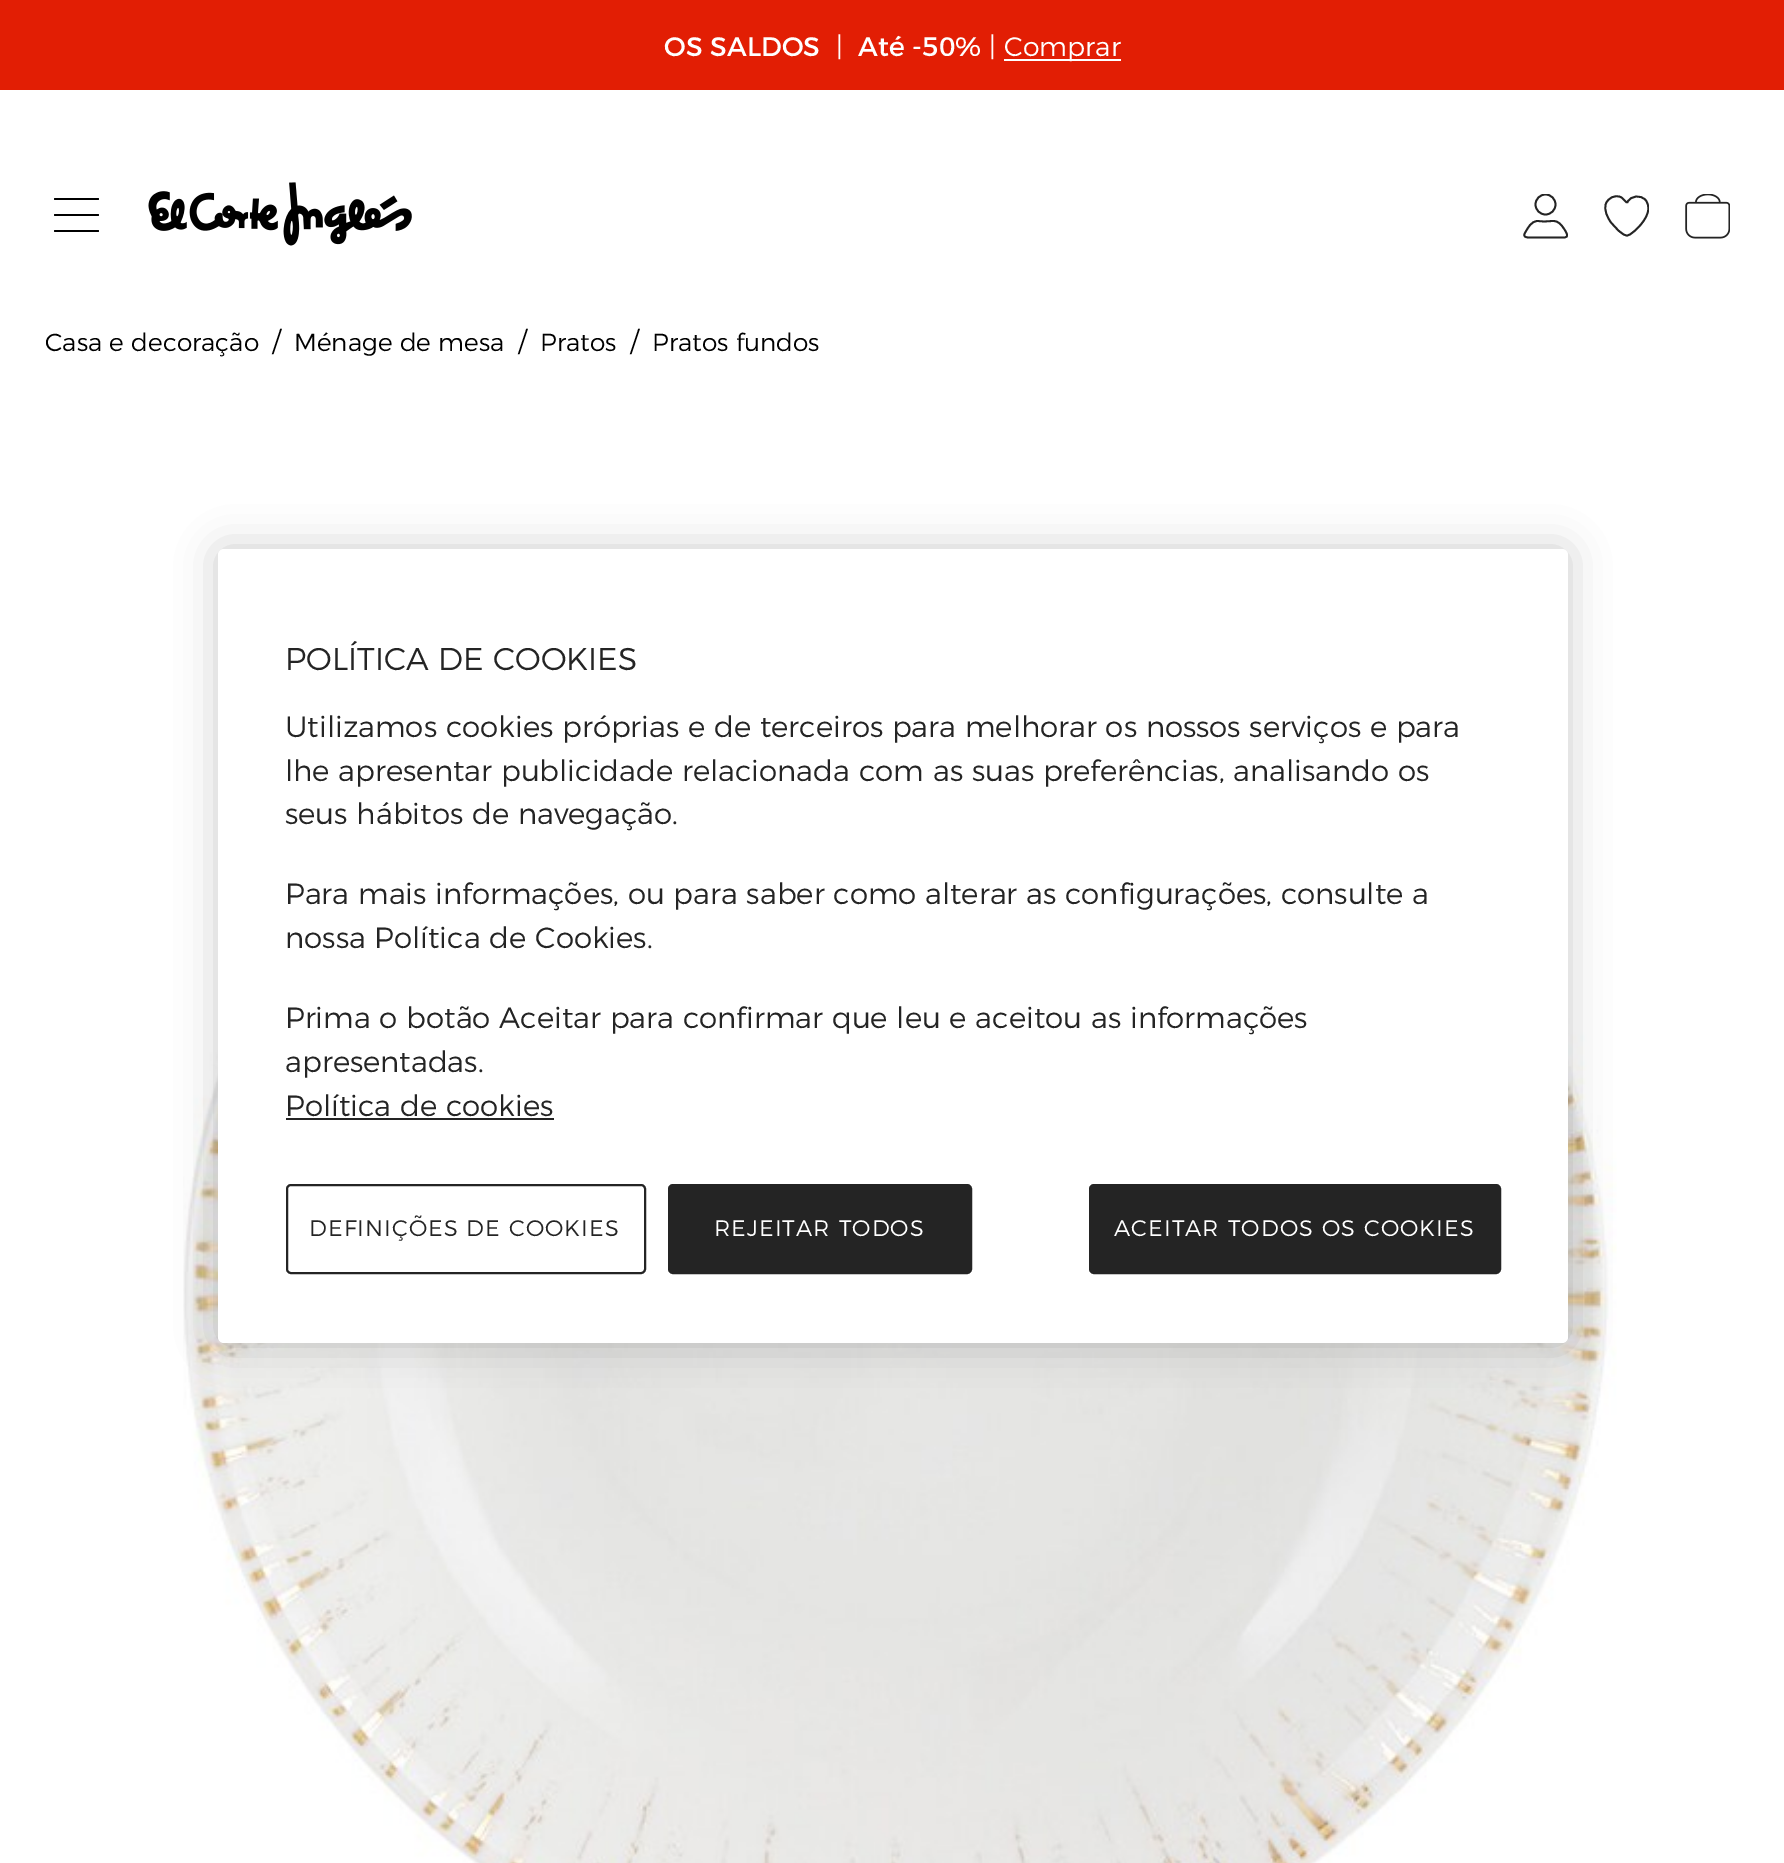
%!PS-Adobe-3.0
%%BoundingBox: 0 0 1784 1863
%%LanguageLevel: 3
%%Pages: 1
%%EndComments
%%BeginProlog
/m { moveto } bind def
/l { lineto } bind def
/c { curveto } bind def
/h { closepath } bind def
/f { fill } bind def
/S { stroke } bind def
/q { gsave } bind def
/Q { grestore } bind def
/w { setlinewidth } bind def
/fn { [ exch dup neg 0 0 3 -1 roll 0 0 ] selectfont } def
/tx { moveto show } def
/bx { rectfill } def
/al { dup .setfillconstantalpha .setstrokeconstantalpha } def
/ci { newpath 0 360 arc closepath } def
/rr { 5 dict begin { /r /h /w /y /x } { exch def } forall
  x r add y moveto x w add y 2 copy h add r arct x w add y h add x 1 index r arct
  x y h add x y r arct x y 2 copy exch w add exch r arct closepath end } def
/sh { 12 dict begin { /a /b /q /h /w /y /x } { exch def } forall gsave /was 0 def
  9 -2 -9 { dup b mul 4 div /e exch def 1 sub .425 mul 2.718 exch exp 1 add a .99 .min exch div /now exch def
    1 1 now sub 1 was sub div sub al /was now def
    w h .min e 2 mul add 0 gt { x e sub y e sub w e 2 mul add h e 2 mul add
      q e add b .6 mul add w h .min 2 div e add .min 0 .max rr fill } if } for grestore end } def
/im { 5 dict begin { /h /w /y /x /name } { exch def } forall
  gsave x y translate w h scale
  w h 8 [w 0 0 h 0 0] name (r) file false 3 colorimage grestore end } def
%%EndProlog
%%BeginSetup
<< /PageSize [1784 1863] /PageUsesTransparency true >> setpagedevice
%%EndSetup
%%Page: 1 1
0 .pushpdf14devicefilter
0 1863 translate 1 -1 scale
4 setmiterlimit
1 setgray
0 0 1784 1863 bx
0.886 0.118 0.016 setrgbcolor
0 0 1784 90 bx
/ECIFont-Regular 26.75 fn
1 setgray
(OS SALDOS) 664 56 tx
/ECIFont-Light 26.75 fn
(|) 836 56 tx
/ECIFont-Regular 26.75 fn
(Até -50%) 858 56 tx
/ECIFont-Light 26.75 fn
(|) 989 56 tx
1004 59 117 2 bx
(Comprar) 1004 56 tx
0 setgray
54 214 45 2 1 rr f
54 198 45 2 1 rr f
54 230 45 2 1 rr f
(image0.raw) 148 182 264 64 im
q
1523 194 45 45 rectclip
0.141 setgray
1.8 w
1545.5 204.5 10 ci S
Q
0.141 setgray
1.8 w
1 setlinecap
1 setlinejoin
1552.5 221 m 1544 221.5 l 1537.5 221 l 1531 221.5 1528.5 227 1525.5 232 c 1521 238.5 1529.5 237.5 1533.5 237.5 c 1564 237.5 l 1570 237.5 1566 232 1564.5 229.5 c 1561.5 225 1558.5 220.5 1552.5 221 c h S
q
1604 194 45 45 rectclip
0 setlinejoin
1627.5 202 m 1626.5 204 1623.5 198 1620.5 197 c 1615 194.5 1608 198 1606 203.5 c 1603.5 210 1607.5 217.5 1611 222.5 c 1613.5 225.5 1616 228.5 1619 231 c 1627 237.5 1627 237 1634.5 231 c 1642 224.5 1654 210.5 1645.5 200 c 1640.5 194.5 1631 195.5 1627.5 202 c h S
Q
(image1.raw) 1685 194 45 45 im
/ECIFont-Light 24.75 fn
0 setgray
(Casa e decoração) 45 351 tx
/ECIFont-Light 27 fn
(/) 272 351 tx
/ECIFont-Light 24.75 fn
(Ménage de mesa) 294 351 tx
/ECIFont-Light 27 fn
(/) 518 351 tx
/ECIFont-Light 24.75 fn
(Pratos) 540 351 tx
/ECIFont-Light 27 fn
(/) 630 351 tx
/ECIFont-Light 24.75 fn
(Pratos fundos) 652 351 tx
(image2.raw) 183 586 1434 1277 im
218 549 1350 794 6 20 0.2 sh
1 setgray
218 549 1350 794 6 rr f
/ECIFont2-Light 31.5 fn
0.141 setgray
(POLÍTICA DE COOKIES) 285 670 tx
/ECIFont2-Light 29.25 fn
(Utilizamos cookies próprias e de terceiros para melhorar os nossos serviços e para) 285 737 tx
(lhe apresentar publicidade relacionada com as suas preferências, analisando os) 285 781 tx
(seus hábitos de navegação.) 285 824 tx
(Para mais informações, ou para saber como alterar as configurações, consulte a) 285 904 tx
(nossa Política de Cookies.) 285 948 tx
(Prima o botão Aceitar para confirmar que leu e aceitou as informações) 285 1028 tx
(apresentadas.) 285 1072 tx
(Política de cookies) 285 1116 tx
286 1118 268 2 bx
2 w
0 setlinecap
0 setlinejoin
287 1185 358 88 4 rr S
/ECIFont2-Light 22.5 fn
309 1236 m 1.1 0 (DEFINIÇÕES DE COOKIES) ashow
669 1185 302 88 4 rr q f Q
S
1 setgray
714 1236 m 1.1 0 (REJEITAR TODOS) ashow
0.141 setgray
1090 1185 410 88 4 rr q f Q
S
1 setgray
1114 1236 m 1.1 0 (ACEITAR TODOS OS COOKIES) ashow
.poppdf14devicefilter showpage
%%EOF
